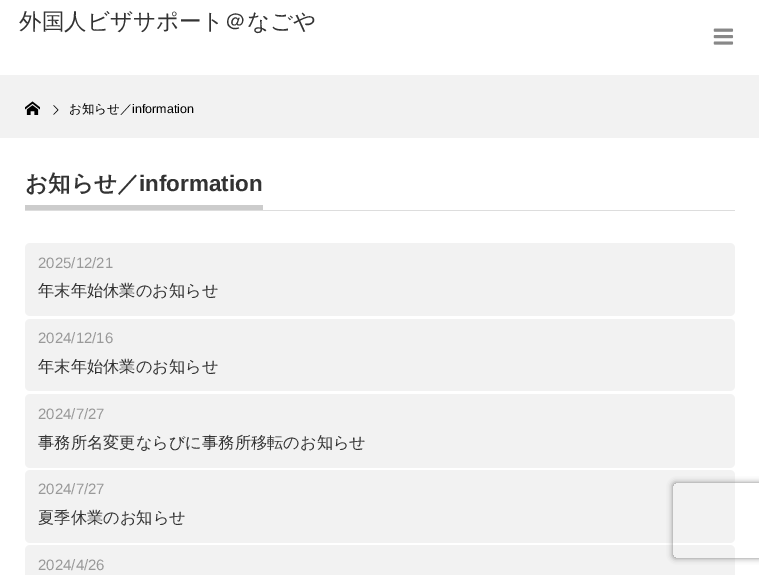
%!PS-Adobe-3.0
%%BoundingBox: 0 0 759 575
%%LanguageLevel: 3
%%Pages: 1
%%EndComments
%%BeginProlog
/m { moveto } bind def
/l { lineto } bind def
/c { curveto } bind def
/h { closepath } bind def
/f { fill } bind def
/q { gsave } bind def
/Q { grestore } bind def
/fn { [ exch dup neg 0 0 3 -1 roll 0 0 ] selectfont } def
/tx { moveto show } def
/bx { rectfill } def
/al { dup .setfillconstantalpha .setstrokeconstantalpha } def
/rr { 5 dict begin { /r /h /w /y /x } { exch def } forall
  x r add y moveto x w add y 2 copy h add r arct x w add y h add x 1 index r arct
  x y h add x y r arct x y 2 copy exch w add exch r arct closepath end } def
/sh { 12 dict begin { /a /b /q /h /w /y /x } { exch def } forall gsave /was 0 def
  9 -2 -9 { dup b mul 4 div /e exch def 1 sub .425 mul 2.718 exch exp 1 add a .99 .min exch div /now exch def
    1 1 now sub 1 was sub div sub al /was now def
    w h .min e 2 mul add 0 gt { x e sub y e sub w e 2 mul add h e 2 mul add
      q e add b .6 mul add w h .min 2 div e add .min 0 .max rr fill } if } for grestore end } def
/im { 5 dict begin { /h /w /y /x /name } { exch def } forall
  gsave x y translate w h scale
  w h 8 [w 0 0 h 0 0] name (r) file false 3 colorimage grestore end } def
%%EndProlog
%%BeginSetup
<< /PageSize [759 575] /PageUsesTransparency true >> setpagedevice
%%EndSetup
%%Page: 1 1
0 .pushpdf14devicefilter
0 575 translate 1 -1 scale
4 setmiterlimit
1 setgray
0 0 759 575 bx
/WenQuanYiZenHei-Medium 22.5 fn
0.2 setgray
(外国人ビザサポート＠なごや) 19 29 tx
(image0.raw) 713 28 21 17 im
0.949 setgray
0 75 759 63 bx
(image1.raw) 25 101 15 14 im
(image2.raw) 53 105 6 10 im
/WenQuanYiZenHei-Medium 12.5 fn
0 setgray
(お知らせ／) 69 113 tx
/LiberationSans-Regular 12.5 fn
(information) 132 113 tx
0.867 setgray
25 210 710 1 bx
0.8 setgray
25 205 238 5 bx
/WenQuanYiZenHei-Bold 22.5 fn
0.2 setgray
(お知らせ／) 25 191 tx
/LiberationSans-Bold 22.5 fn
(information) 139 191 tx
0.949 setgray
25 243 710 73 5 rr f
/LiberationSans-Regular 15 fn
0.6 setgray
(2025/12/21) 38 268 tx
/WenQuanYiZenHei-Medium 16.25 fn
0.2 setgray
(年末年始休業のお知らせ) 38 296 tx
0.949 setgray
25 319 710 72 5 rr f
/LiberationSans-Regular 15 fn
0.6 setgray
(2024/12/16) 38 343 tx
/WenQuanYiZenHei-Medium 16.25 fn
0.2 setgray
(年末年始休業のお知らせ) 38 372 tx
0.949 setgray
25 394 710 74 5 rr f
/LiberationSans-Regular 15 fn
0.6 setgray
(2024/7/27) 38 419 tx
/WenQuanYiZenHei-Medium 16.25 fn
0.2 setgray
(事務所名変更ならびに事務所移転のお知らせ) 38 448 tx
0.949 setgray
25 470 710 73 5 rr f
/LiberationSans-Regular 15 fn
0.6 setgray
(2024/7/27) 38 494 tx
/WenQuanYiZenHei-Medium 16.25 fn
0.2 setgray
(夏季休業のお知らせ) 38 523 tx
0.949 setgray
25 545 710 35 5 rr f
/LiberationSans-Regular 15 fn
0.6 setgray
(2024/4/26) 38 570 tx
q
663 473 m 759 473 l 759 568 l 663 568 l h 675.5 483 m 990.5 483 l 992 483 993 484 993 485.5 c 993 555.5 l 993 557 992 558 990.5 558 c 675.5 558 l 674 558 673 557 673 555.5 c 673 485.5 l 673 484 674 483 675.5 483 c h eoclip newpath
0.502 setgray
673 483 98 75 2.5 3 1 sh
Q
.poppdf14devicefilter showpage
%%EOF
